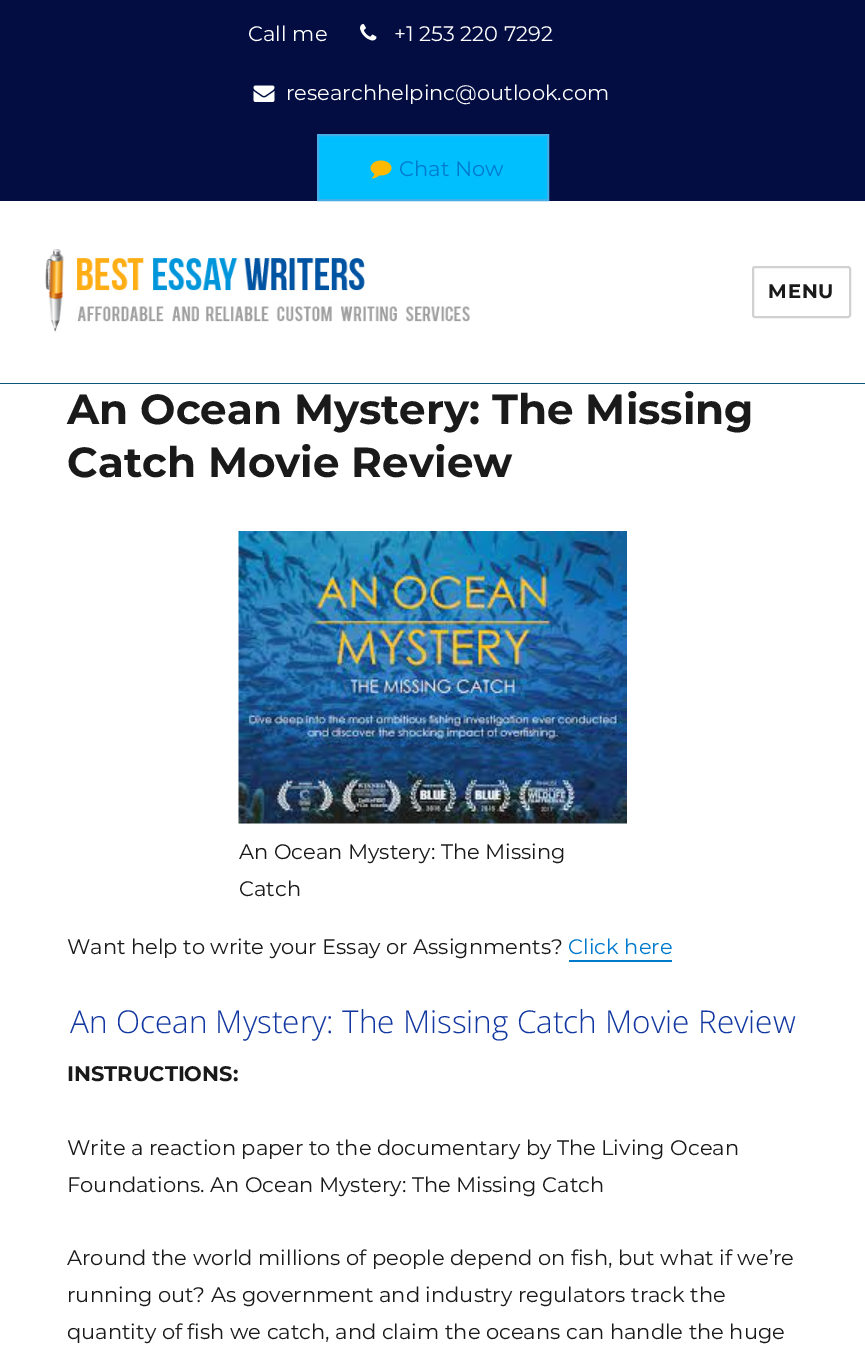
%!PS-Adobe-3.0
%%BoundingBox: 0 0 865 1354
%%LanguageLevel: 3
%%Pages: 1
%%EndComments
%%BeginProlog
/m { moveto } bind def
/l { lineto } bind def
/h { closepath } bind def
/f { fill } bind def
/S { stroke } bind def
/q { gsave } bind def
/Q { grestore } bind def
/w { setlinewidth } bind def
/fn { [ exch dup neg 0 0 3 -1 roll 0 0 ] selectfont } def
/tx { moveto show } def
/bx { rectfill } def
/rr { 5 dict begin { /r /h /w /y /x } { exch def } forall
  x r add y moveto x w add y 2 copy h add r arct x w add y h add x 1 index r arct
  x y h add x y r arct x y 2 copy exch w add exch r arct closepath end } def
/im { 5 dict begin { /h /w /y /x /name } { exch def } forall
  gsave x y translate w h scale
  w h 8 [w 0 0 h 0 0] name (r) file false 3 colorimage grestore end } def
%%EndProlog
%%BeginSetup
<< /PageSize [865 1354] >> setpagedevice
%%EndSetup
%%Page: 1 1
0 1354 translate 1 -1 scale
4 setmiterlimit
1 setgray
0 0 865 1354 bx
0.012 0.051 0.259 setrgbcolor
0 0 865 201 bx
/Montserrat-Thin 21 fn
1 setgray
(Call me) 248 41 tx
(image0.raw) 360 24 17 17 im
(+1 253 220 7292) 394 41 tx
(image1.raw) 253 85 22 17 im
(researchhelpinc@outlook.com) 286 100 tx
0 0.749 1 setrgbcolor
318 135 m 548 135 l 548 200 l 318 200 l h q f Q
0.271 0.682 0.902 setrgbcolor
2 w
S
(image2.raw) 370 160 22 19 im
0 0.478 0.8 setrgbcolor
(Chat Now) 399 176 tx
0.047 0.345 0.49 setrgbcolor
0 383 865 1 bx
(image3.raw) 45 249 425 84 im
0.82 setgray
753 267 97 50 2 rr S
/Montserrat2-Thin 19.5 fn
0.102 setgray
768 298 m 1 0 (MENU) ashow
/Montserrat2-Thin 42 fn
(An Ocean Mystery: The Missing) 67 424 tx
(Catch Movie Review) 67 477 tx
(image4.raw) 238 531 389 293 im
/Montserrat-Thin 21 fn
(An Ocean Mystery: The Missing) 239 859 tx
(Catch) 239 896 tx
(Want help to write your Essay or Assignments?) 67 954 tx
0 0.478 0.8 setrgbcolor
(Click here) 568 954 tx
569 960 103 2 bx
/OpenSans-Light 31.5 fn
0.071 0.216 0.631 setrgbcolor
(An Ocean Mystery: The Missing Catch Movie Review) 70 1033 tx
/Montserrat2-Thin 21 fn
0.102 setgray
(INSTRUCTIONS:) 67 1081 tx
/Montserrat-Thin 21 fn
(Write a reaction paper to the documentary by The Living Ocean) 67 1155 tx
(Foundations. An Ocean Mystery: The Missing Catch) 67 1192 tx
(Around the world millions of people depend on fish, but what if we’re) 67 1265 tx
(running out? As government and industry regulators track the) 67 1302 tx
(quantity of fish we catch, and claim the oceans can handle the huge) 67 1339 tx
showpage
%%EOF
